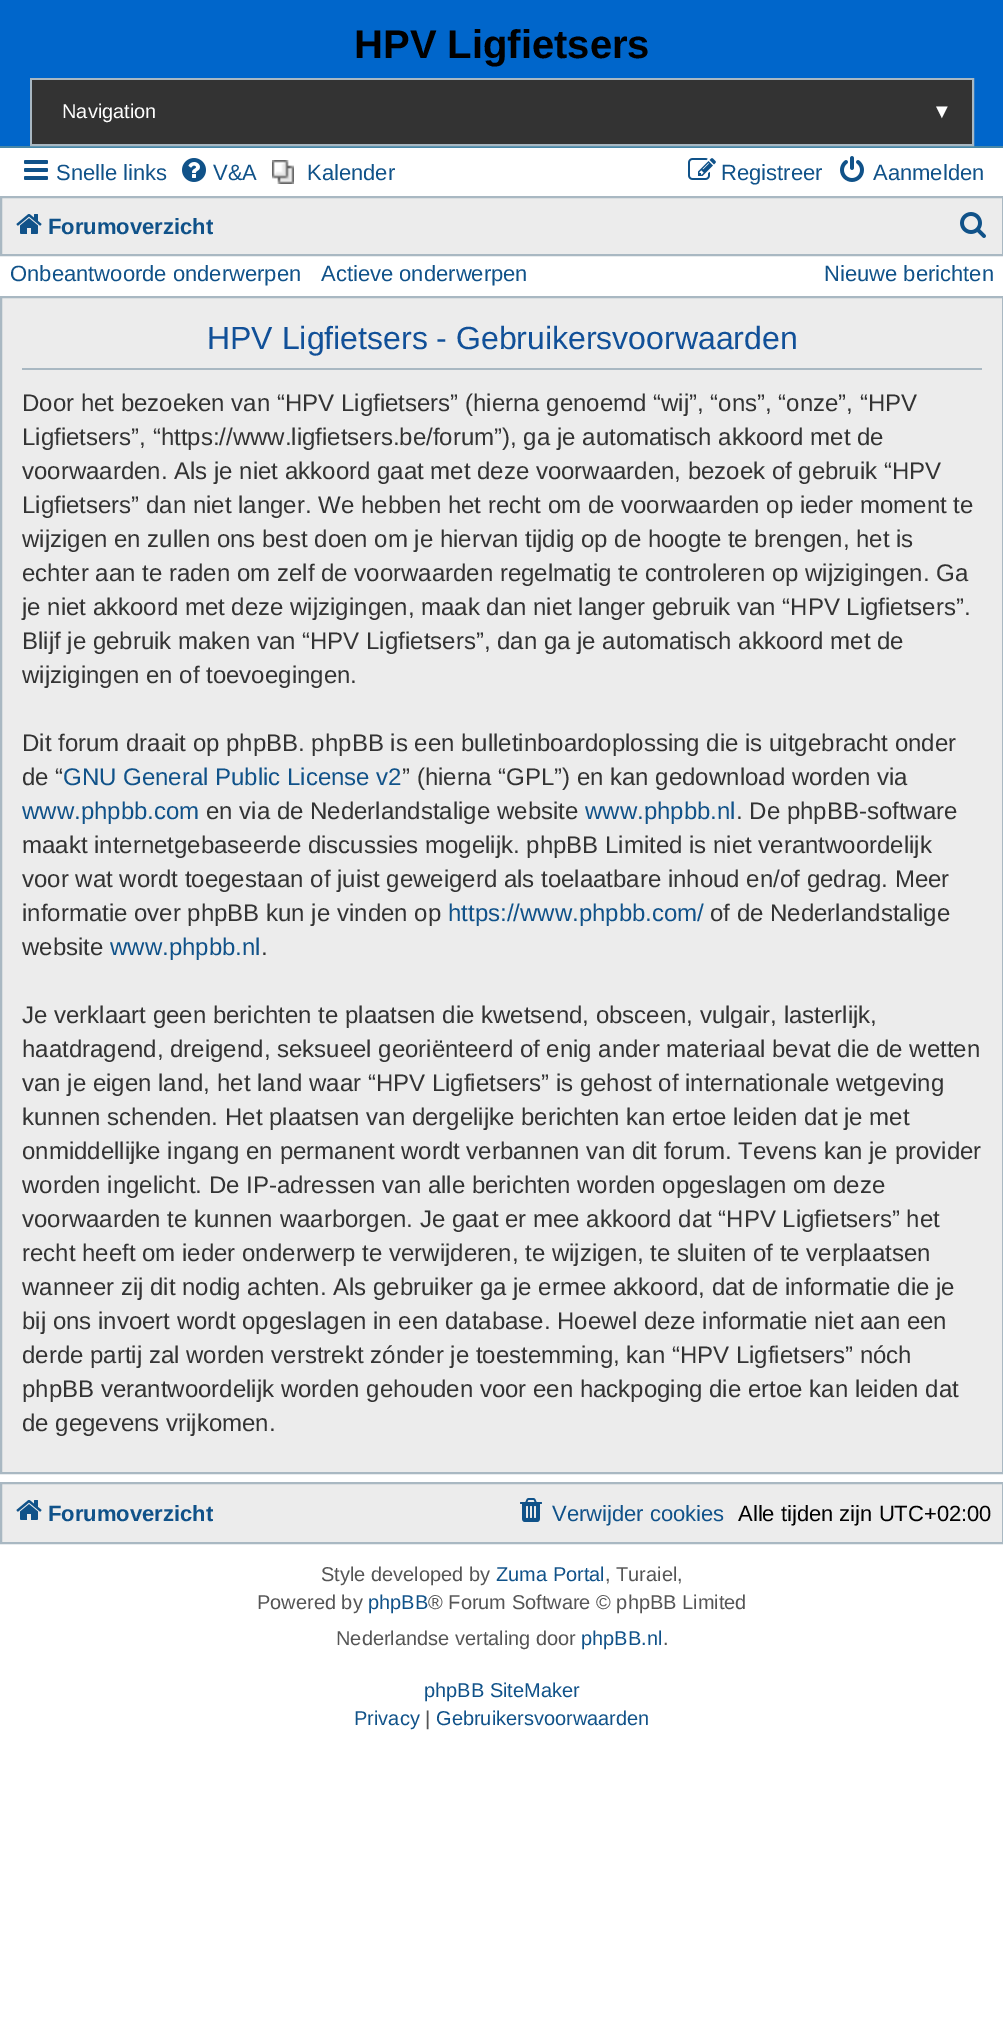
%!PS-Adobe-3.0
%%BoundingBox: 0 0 1003 2019
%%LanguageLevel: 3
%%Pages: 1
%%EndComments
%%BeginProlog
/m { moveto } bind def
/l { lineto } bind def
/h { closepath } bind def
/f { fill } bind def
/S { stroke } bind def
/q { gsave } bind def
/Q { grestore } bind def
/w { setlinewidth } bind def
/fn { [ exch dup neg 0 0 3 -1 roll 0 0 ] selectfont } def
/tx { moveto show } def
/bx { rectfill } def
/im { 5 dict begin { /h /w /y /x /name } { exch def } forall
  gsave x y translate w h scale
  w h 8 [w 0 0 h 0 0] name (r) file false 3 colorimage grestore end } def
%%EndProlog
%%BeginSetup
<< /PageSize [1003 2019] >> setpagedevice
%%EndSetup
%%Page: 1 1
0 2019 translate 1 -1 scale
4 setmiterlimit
1 setgray
0 0 1003 2019 bx
0 0.4 0.796 setrgbcolor
0 0 1003 146 bx
0.278 0.529 0.655 setrgbcolor
0 146 1003 2 bx
/LiberationSans-Bold 40 fn
0 setgray
(HPV Ligfietsers) 354 58 tx
0.663 0.722 0.761 setrgbcolor
2 w
31 79 942 66 rectstroke
0.2 setgray
32 80 940 64 bx
/LiberationSans-Regular 20 fn
1 setgray
(Navigation) 62 118 tx
(▼) 932 118 tx
(image0.raw) 24 160 24 20 im
/LiberationSans-Regular 22 fn
0.063 0.322 0.537 setrgbcolor
(Snelle links) 56 180 tx
(image1.raw) 182 158 24 24 im
(V&A) 213 180 tx
(image2.raw) 272 160 22 24 im
(Kalender) 307 180 tx
(image3.raw) 688 158 28 22 im
(Registreer) 721 180 tx
(image4.raw) 840 156 24 26 im
(Aanmelden) 873 180 tx
0.925 setgray
1 197 m 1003 197 l 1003 255 l 1 255 l h q f Q
0.663 0.722 0.761 setrgbcolor
S
(image5.raw) 16 214 26 20 im
/LiberationSans-Bold 22 fn
0.063 0.322 0.537 setrgbcolor
(Forumoverzicht) 48 234 tx
(image6.raw) 960 212 26 26 im
/LiberationSans-Regular 22 fn
(Onbeantwoorde onderwerpen) 10 281 tx
(Actieve onderwerpen) 321 281 tx
(Nieuwe berichten) 824 281 tx
0.925 setgray
1 297 m 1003 297 l 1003 1473 l 1 1473 l h q f Q
0.663 0.722 0.761 setrgbcolor
S
22 368 960 2 bx
/LiberationSans-Regular 32 fn
0.067 0.314 0.596 setrgbcolor
(HPV Ligfietsers - Gebruikersvoorwaarden) 207 349 tx
/LiberationSans-Regular 24 fn
0.2 setgray
(Door het bezoeken van “HPV Ligfietsers” \(hierna genoemd “wij”, “ons”, “onze”, “HPV) 22 411 tx
(Ligfietsers”, “https://www.ligfietsers.be/forum”\), ga je automatisch akkoord met de) 22 445 tx
(voorwaarden. Als je niet akkoord gaat met deze voorwaarden, bezoek of gebruik “HPV) 22 479 tx
(Ligfietsers” dan niet langer. We hebben het recht om de voorwaarden op ieder moment te) 22 513 tx
(wijzigen en zullen ons best doen om je hiervan tijdig op de hoogte te brengen, het is) 22 547 tx
(echter aan te raden om zelf de voorwaarden regelmatig te controleren op wijzigingen. Ga) 22 581 tx
(je niet akkoord met deze wijzigingen, maak dan niet langer gebruik van “HPV Ligfietsers”.) 22 615 tx
(Blijf je gebruik maken van “HPV Ligfietsers”, dan ga je automatisch akkoord met de) 22 649 tx
(wijzigingen en of toevoegingen.) 22 683 tx
(Dit forum draait op phpBB. phpBB is een bulletinboardoplossing die is uitgebracht onder) 22 751 tx
(de “) 22 785 tx
0.063 0.322 0.537 setrgbcolor
(GNU General Public License v2) 63 785 tx
0.2 setgray
(” \(hierna “GPL”\) en kan gedownload worden via) 402 785 tx
0.063 0.322 0.537 setrgbcolor
(www.phpbb.com) 22 819 tx
0.2 setgray
(en via de Nederlandstalige website) 206 819 tx
0.063 0.322 0.537 setrgbcolor
(www.phpbb.nl) 585 819 tx
0.2 setgray
(. De phpBB-software) 736 819 tx
(maakt internetgebaseerde discussies mogelijk. phpBB Limited is niet verantwoordelijk) 22 853 tx
(voor wat wordt toegestaan of juist geweigerd als toelaatbare inhoud en/of gedrag. Meer) 22 887 tx
(informatie over phpBB kun je vinden op) 22 921 tx
0.063 0.322 0.537 setrgbcolor
(https://www.phpbb.com/) 448 921 tx
0.2 setgray
(of de Nederlandstalige) 710 921 tx
(website) 22 955 tx
0.063 0.322 0.537 setrgbcolor
(www.phpbb.nl) 110 955 tx
0.2 setgray
(.) 261 955 tx
(Je verklaart geen berichten te plaatsen die kwetsend, obsceen, vulgair, lasterlijk,) 22 1023 tx
(haatdragend, dreigend, seksueel georiënteerd of enig ander materiaal bevat die de wetten) 22 1057 tx
(van je eigen land, het land waar “HPV Ligfietsers” is gehost of internationale wetgeving) 22 1091 tx
(kunnen schenden. Het plaatsen van dergelijke berichten kan ertoe leiden dat je met) 22 1125 tx
(onmiddellijke ingang en permanent wordt verbannen van dit forum. Tevens kan je provider) 22 1159 tx
(worden ingelicht. De IP-adressen van alle berichten worden opgeslagen om deze) 22 1193 tx
(voorwaarden te kunnen waarborgen. Je gaat er mee akkoord dat “HPV Ligfietsers” het) 22 1227 tx
(recht heeft om ieder onderwerp te verwijderen, te wijzigen, te sluiten of te verplaatsen) 22 1261 tx
(wanneer zij dit nodig achten. Als gebruiker ga je ermee akkoord, dat de informatie die je) 22 1295 tx
(bij ons invoert wordt opgeslagen in een database. Hoewel deze informatie niet aan een) 22 1329 tx
(derde partij zal worden verstrekt zónder je toestemming, kan “HPV Ligfietsers” nóch) 22 1363 tx
(phpBB verantwoordelijk worden gehouden voor een hackpoging die ertoe kan leiden dat) 22 1397 tx
(de gegevens vrijkomen.) 22 1431 tx
0.925 setgray
1 1483 m 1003 1483 l 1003 1543 l 1 1543 l h q f Q
0.663 0.722 0.761 setrgbcolor
S
(image5.raw) 16 1500 26 20 im
/LiberationSans-Bold 22 fn
0.063 0.322 0.537 setrgbcolor
(Forumoverzicht) 48 1521 tx
(image7.raw) 520 1498 22 24 im
/LiberationSans-Regular 22 fn
(Verwijder cookies) 552 1521 tx
0 setgray
(Alle tijden zijn UTC+02:00) 738 1521 tx
/LiberationSans-Regular 20 fn
0.333 setgray
(Style developed by) 321 1581 tx
0.063 0.322 0.537 setrgbcolor
(Zuma Portal) 496 1581 tx
0.333 setgray
(, Turaiel,) 605 1581 tx
(Powered by) 257 1609 tx
0.063 0.322 0.537 setrgbcolor
(phpBB) 368 1609 tx
0.333 setgray
(® Forum Software © phpBB Limited) 428 1609 tx
(Nederlandse vertaling door) 336 1645 tx
0.063 0.322 0.537 setrgbcolor
(phpBB.nl) 581 1645 tx
0.333 setgray
(.) 663 1645 tx
0.063 0.322 0.537 setrgbcolor
(phpBB SiteMaker) 424 1697 tx
(Privacy) 354 1725 tx
0.333 setgray
(|) 425 1725 tx
0.063 0.322 0.537 setrgbcolor
(Gebruikersvoorwaarden) 436 1725 tx
showpage
%%EOF
